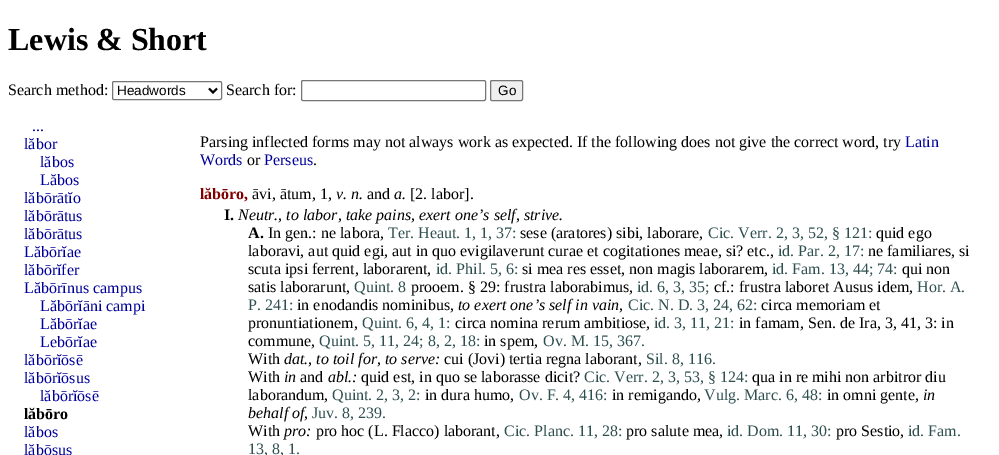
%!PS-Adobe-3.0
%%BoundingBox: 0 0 999 455
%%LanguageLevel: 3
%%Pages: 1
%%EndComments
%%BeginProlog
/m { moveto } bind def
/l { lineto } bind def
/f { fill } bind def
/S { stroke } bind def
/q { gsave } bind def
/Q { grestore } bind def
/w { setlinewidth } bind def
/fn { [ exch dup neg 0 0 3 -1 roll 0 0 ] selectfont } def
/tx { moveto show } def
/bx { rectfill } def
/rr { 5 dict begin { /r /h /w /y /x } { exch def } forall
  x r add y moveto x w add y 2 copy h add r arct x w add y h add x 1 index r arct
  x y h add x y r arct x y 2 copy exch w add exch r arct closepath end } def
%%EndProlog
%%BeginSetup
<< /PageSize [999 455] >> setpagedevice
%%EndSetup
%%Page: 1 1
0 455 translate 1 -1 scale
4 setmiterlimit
1 setgray
0 0 999 455 bx
/LiberationSerif-Bold 32 fn
0 setgray
(Lewis & Short) 8 50 tx
/LiberationSerif-Regular 16 fn
(Search method:) 8 95 tx
0.463 setgray
112.5 81.5 109 18 1.5 rr S
0 setgray
2 w
209 88.5 m 213 92.5 l 217 88.5 l S
/LiberationSans-Regular 13.5 fn
(Headwords) 117 95 tx
/LiberationSerif-Regular 16 fn
(Search for:) 226 95 tx
0.463 setgray
1 w
301.5 80.5 184 20 1.5 rr S
0.937 setgray
490.5 80.5 32 20 1.5 rr q f Q
0.463 setgray
S
/LiberationSans-Regular 13.5 fn
0 setgray
(Go) 498 95 tx
/LiberationSerif-Regular 16 fn
0 0 0.596 setrgbcolor
(...) 32 131 tx
(lăbor) 24 149 tx
(lăbos) 40 167 tx
(Lăbos) 40 185 tx
(lăbōrātĭo) 24 203 tx
(lăbōrātus) 24 221 tx
(lăbōrātus) 24 239 tx
(Lăbōrĭae) 24 257 tx
(lăbōrĭfer) 24 275 tx
(Lăbōrīnus campus) 24 293 tx
(Lăbōrĭāni campi) 40 311 tx
(Lăbōrĭae) 40 329 tx
(Lebōrĭae) 40 347 tx
(lăbōrĭōsē) 24 365 tx
(lăbōrĭōsus) 24 383 tx
(lăbōrĭōsē) 40 401 tx
/LiberationSerif-Bold 16 fn
0 setgray
(lăbōro) 24 419 tx
/LiberationSerif-Regular 16 fn
0 0 0.596 setrgbcolor
(lăbos) 24 437 tx
(lăbōsus) 24 455 tx
0 setgray
(Parsing inflected forms may not always work as expected. If the following does not give the correct word, try) 200 147 tx
0 0 0.596 setrgbcolor
(Latin) 905 147 tx
(Words) 200 165 tx
0 setgray
(or) 247 165 tx
0 0 0.596 setrgbcolor
(Perseus) 264 165 tx
0 setgray
(.) 313 165 tx
/LiberationSerif-Bold 16 fn
0.502 0 0 setrgbcolor
(lăbōro,) 200 199 tx
/LiberationSerif-Regular 16 fn
0 setgray
(āvi, ātum, 1,) 252 199 tx
/LiberationSerif-Italic 16 fn
(v. n.) 336 199 tx
/LiberationSerif-Regular 16 fn
(and) 367 199 tx
/LiberationSerif-Italic 16 fn
(a.) 394 199 tx
/LiberationSerif-Regular 16 fn
([2. labor].) 410 199 tx
/LiberationSerif-Bold 16 fn
(I.) 224 220 tx
/LiberationSerif-Italic 16 fn
(Neutr., to labor, take pains, exert one’s self, strive.) 238 220 tx
/LiberationSerif-Bold 16 fn
(A.) 248 238 tx
/LiberationSerif-Regular 16 fn
(In gen.: ne labora,) 268 238 tx
0.184 0.31 0.31 setrgbcolor
(Ter. Heaut. 1, 1, 37:) 388 238 tx
0 setgray
(sese \(aratores\) sibi, laborare,) 520 238 tx
0.184 0.31 0.31 setrgbcolor
(Cic. Verr. 2, 3, 52, § 121:) 708 238 tx
0 setgray
(quid ego) 876 238 tx
(laboravi, aut quid egi, aut in quo evigilaverunt curae et cogitationes meae, si? etc.,) 248 256 tx
0.184 0.31 0.31 setrgbcolor
(id. Par. 2, 17:) 778 256 tx
0 setgray
(ne familiares, si) 868 256 tx
(scuta ipsi ferrent, laborarent,) 248 274 tx
0.184 0.31 0.31 setrgbcolor
(id. Phil. 5, 6:) 436 274 tx
0 setgray
(si mea res esset, non magis laborarem,) 522 274 tx
0.184 0.31 0.31 setrgbcolor
(id. Fam. 13, 44; 74:) 772 274 tx
0 setgray
(qui non) 902 274 tx
(satis laborarunt,) 248 292 tx
0.184 0.31 0.31 setrgbcolor
(Quint. 8) 354 292 tx
0 setgray
(prooem. § 29: frustra laborabimus,) 411 292 tx
0.184 0.31 0.31 setrgbcolor
(id. 6, 3, 35;) 637 292 tx
0 setgray
(cf.: frustra laboret Ausus idem,) 714 292 tx
0.184 0.31 0.31 setrgbcolor
(Hor. A.) 917 292 tx
(P. 241:) 248 310 tx
0 setgray
(in enodandis nominibus,) 297 310 tx
/LiberationSerif-Italic 16 fn
(to exert one’s self in vain,) 458 310 tx
/LiberationSerif-Regular 16 fn
0.184 0.31 0.31 setrgbcolor
(Cic. N. D. 3, 24, 62:) 628 310 tx
0 setgray
(circa memoriam et) 761 310 tx
(pronuntiationem,) 248 328 tx
0.184 0.31 0.31 setrgbcolor
(Quint. 6, 4, 1:) 362 328 tx
0 setgray
(circa nomina rerum ambitiose,) 455 328 tx
0.184 0.31 0.31 setrgbcolor
(id. 3, 11, 21:) 654 328 tx
0 setgray
(in famam, Sen. de Ira, 3, 41, 3: in) 739 328 tx
(commune,) 248 346 tx
0.184 0.31 0.31 setrgbcolor
(Quint. 5, 11, 24; 8, 2, 18:) 319 346 tx
0 setgray
(in spem,) 484 346 tx
0.184 0.31 0.31 setrgbcolor
(Ov. M. 15, 367.) 543 346 tx
0 setgray
(With) 248 364 tx
/LiberationSerif-Italic 16 fn
(dat., to toil for, to serve:) 284 364 tx
/LiberationSerif-Regular 16 fn
(cui \(Jovi\) tertia regna laborant,) 444 364 tx
0.184 0.31 0.31 setrgbcolor
(Sil. 8, 116.) 646 364 tx
0 setgray
(With) 248 382 tx
/LiberationSerif-Italic 16 fn
(in) 284 382 tx
/LiberationSerif-Regular 16 fn
(and) 300 382 tx
/LiberationSerif-Italic 16 fn
(abl.:) 328 382 tx
/LiberationSerif-Regular 16 fn
(quid est, in quo se laborasse dicit?) 361 382 tx
0.184 0.31 0.31 setrgbcolor
(Cic. Verr. 2, 3, 53, § 124:) 584 382 tx
0 setgray
(qua in re mihi non arbitror diu) 752 382 tx
(laborandum,) 248 400 tx
0.184 0.31 0.31 setrgbcolor
(Quint. 2, 3, 2:) 332 400 tx
0 setgray
(in dura humo,) 425 400 tx
0.184 0.31 0.31 setrgbcolor
(Ov. F. 4, 416:) 519 400 tx
0 setgray
(in remigando,) 612 400 tx
0.184 0.31 0.31 setrgbcolor
(Vulg. Marc. 6, 48:) 704 400 tx
0 setgray
(in omni gente,) 827 400 tx
/LiberationSerif-Italic 16 fn
(in) 923 400 tx
(behalf of,) 248 418 tx
/LiberationSerif-Regular 16 fn
0.184 0.31 0.31 setrgbcolor
(Juv. 8, 239.) 312 418 tx
0 setgray
(With) 248 436 tx
/LiberationSerif-Italic 16 fn
(pro:) 284 436 tx
/LiberationSerif-Regular 16 fn
(pro hoc \(L. Flacco\) laborant,) 316 436 tx
0.184 0.31 0.31 setrgbcolor
(Cic. Planc. 11, 28:) 504 436 tx
0 setgray
(pro salute mea,) 626 436 tx
0.184 0.31 0.31 setrgbcolor
(id. Dom. 11, 30:) 727 436 tx
0 setgray
(pro Sestio,) 836 436 tx
0.184 0.31 0.31 setrgbcolor
(id. Fam.) 908 436 tx
(13, 8, 1.) 248 454 tx
showpage
%%EOF
